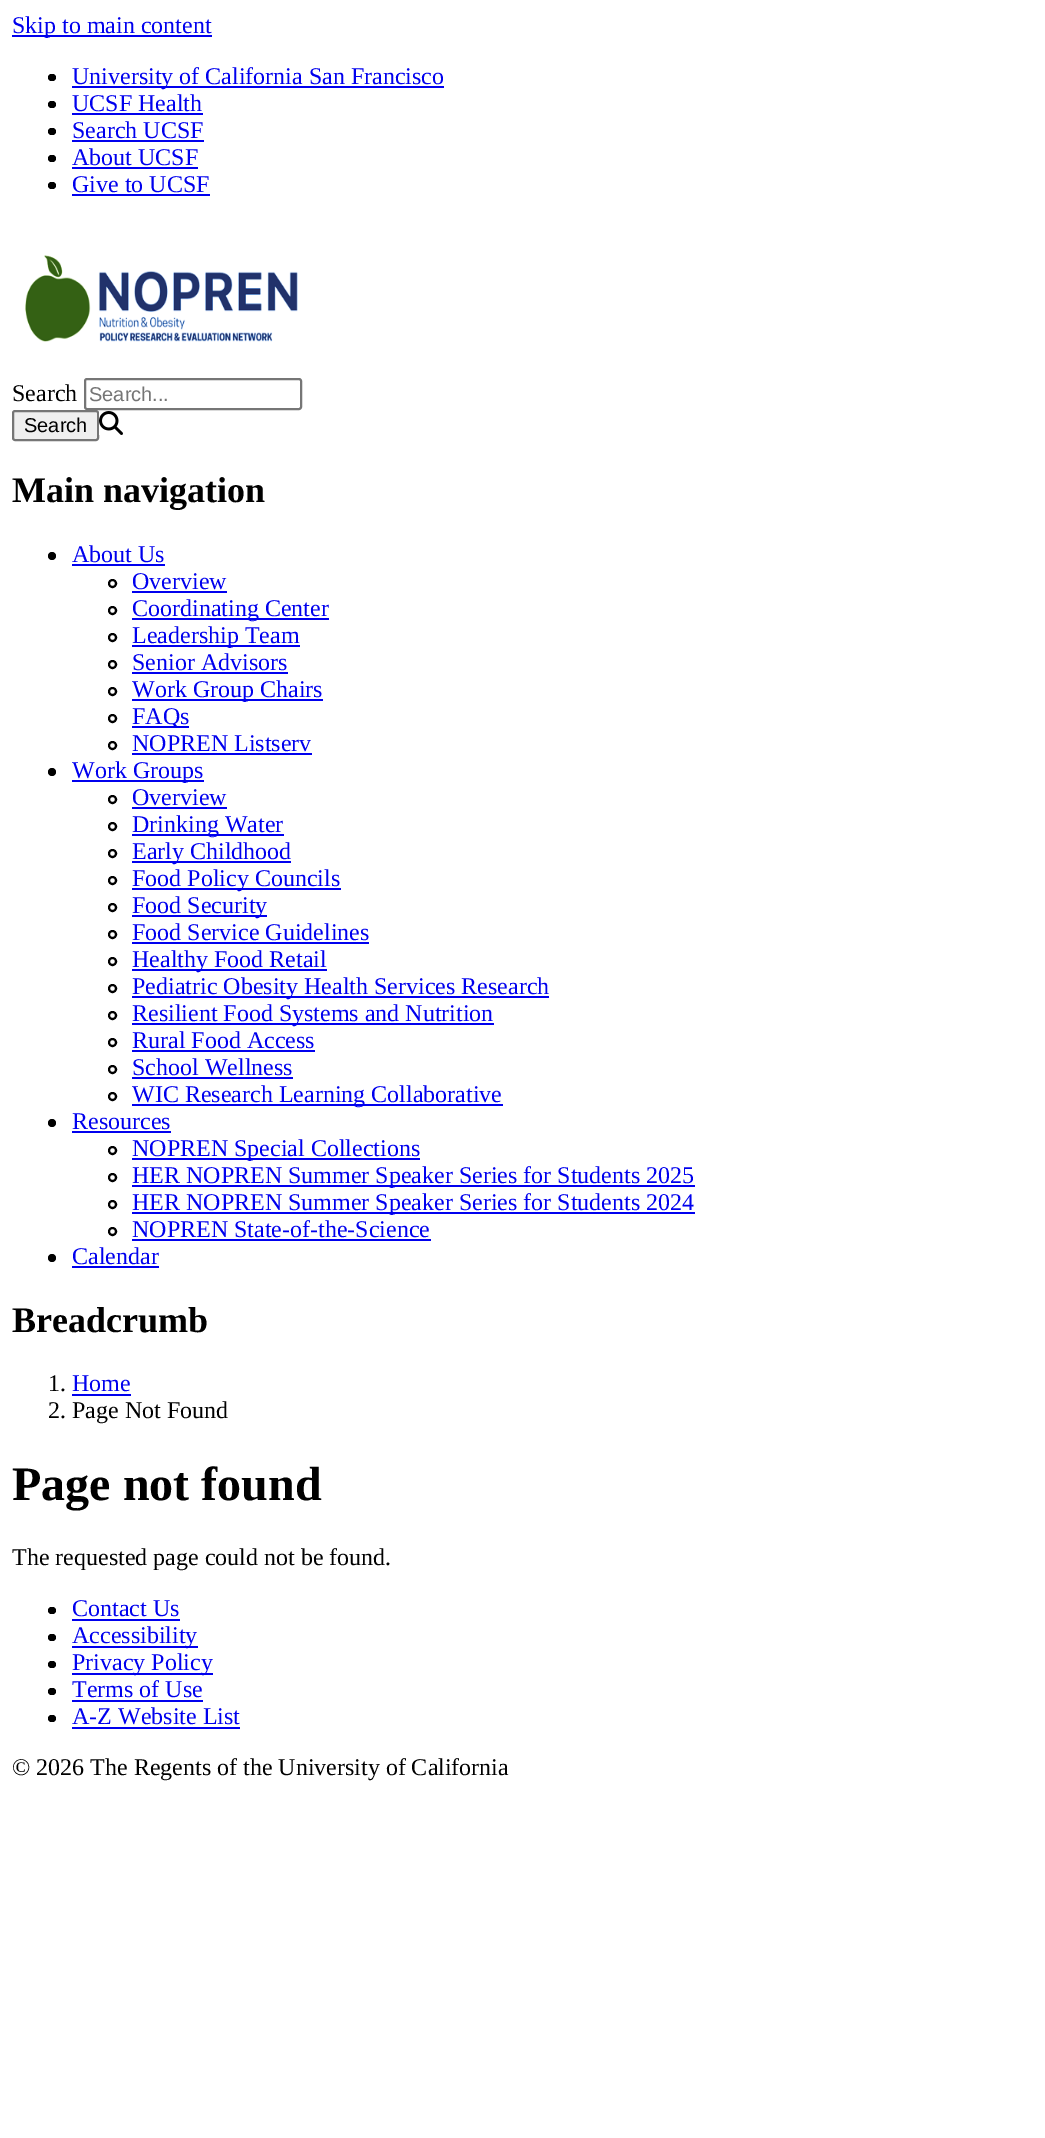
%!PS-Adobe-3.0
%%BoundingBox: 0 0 1045 2138
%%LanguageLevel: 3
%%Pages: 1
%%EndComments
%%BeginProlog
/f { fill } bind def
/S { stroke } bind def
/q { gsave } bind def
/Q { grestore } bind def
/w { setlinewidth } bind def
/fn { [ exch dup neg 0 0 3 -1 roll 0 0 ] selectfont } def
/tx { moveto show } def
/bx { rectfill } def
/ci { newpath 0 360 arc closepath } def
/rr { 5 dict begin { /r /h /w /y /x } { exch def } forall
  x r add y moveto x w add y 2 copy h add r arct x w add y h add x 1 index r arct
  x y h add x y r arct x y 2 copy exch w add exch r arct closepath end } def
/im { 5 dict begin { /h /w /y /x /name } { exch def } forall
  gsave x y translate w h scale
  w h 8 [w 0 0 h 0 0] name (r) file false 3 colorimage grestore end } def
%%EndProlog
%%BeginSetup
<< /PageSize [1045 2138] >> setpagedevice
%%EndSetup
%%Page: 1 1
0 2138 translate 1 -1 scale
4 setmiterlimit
1 setgray
0 0 1045 2138 bx
0 0 0.933 setrgbcolor
12 35 200 2 bx
/LiberationSerif-Regular 24 fn
(Skip to main content) 12 33 tx
0 setgray
48 74 8 7 3.5 rr f
0 0 0.933 setrgbcolor
72 86 372 2 bx
(University of California San Francisco) 72 84 tx
0 setgray
48 101 8 7 3.5 rr f
0 0 0.933 setrgbcolor
(UCSF Health) 72 111 tx
72 113 131 2 bx
0 setgray
48 128 8 7 3.5 rr f
0 0 0.933 setrgbcolor
(Search UCSF) 72 138 tx
72 140 132 2 bx
0 setgray
48 155 8 7 3.5 rr f
0 0 0.933 setrgbcolor
(About UCSF) 72 165 tx
72 167 126 2 bx
0 setgray
48 182 8 7 3.5 rr f
0 0 0.933 setrgbcolor
(Give to UCSF) 72 192 tx
72 194 138 2 bx
(image0.raw) 25 255 273 87 im
0 setgray
(Search) 12 401 tx
0.463 setgray
2 w
85 379 216 30 2 rr S
/LiberationSans-Regular 20 fn
0.459 setgray
(Search...) 89 401 tx
0.937 setgray
13 411 85 29 2 rr q f Q
0.463 setgray
S
0 setgray
(Search) 24 432 tx
(image1.raw) 99 411 24 24 im
/LiberationSerif-Bold 36 fn
(Main navigation) 12 502 tx
52 556 4 ci f
/LiberationSerif-Regular 24 fn
0 0 0.933 setrgbcolor
(About Us) 72 562 tx
72 564 93 2 bx
0 setgray
112.5 583.5 3.5 ci S
0 0 0.933 setrgbcolor
(Overview) 132 589 tx
132 591 95 2 bx
0 setgray
112.5 610.5 3.5 ci S
0 0 0.933 setrgbcolor
132 618 197 2 bx
(Coordinating Center) 132 616 tx
0 setgray
112.5 637.5 3.5 ci S
0 0 0.933 setrgbcolor
132 645 168 2 bx
(Leadership Team) 132 643 tx
0 setgray
112.5 664.5 3.5 ci S
0 0 0.933 setrgbcolor
(Senior Advisors) 132 670 tx
132 672 156 2 bx
0 setgray
112.5 691.5 3.5 ci S
0 0 0.933 setrgbcolor
132 699 191 2 bx
(Work Group Chairs) 132 697 tx
0 setgray
112.5 718.5 3.5 ci S
0 0 0.933 setrgbcolor
132 726 57 2 bx
(FAQs) 132 724 tx
0 setgray
112.5 745.5 3.5 ci S
0 0 0.933 setrgbcolor
(NOPREN Listserv) 132 751 tx
132 753 180 2 bx
0 setgray
52 772 4 ci f
0 0 0.933 setrgbcolor
72 780 132 2 bx
(Work Groups) 72 778 tx
0 setgray
112.5 799.5 3.5 ci S
0 0 0.933 setrgbcolor
(Overview) 132 805 tx
132 807 95 2 bx
0 setgray
112.5 826.5 3.5 ci S
0 0 0.933 setrgbcolor
132 834 152 2 bx
(Drinking Water) 132 832 tx
0 setgray
112.5 853.5 3.5 ci S
0 0 0.933 setrgbcolor
132 861 159 2 bx
(Early Childhood) 132 859 tx
0 setgray
112.5 880.5 3.5 ci S
0 0 0.933 setrgbcolor
132 888 209 2 bx
(Food Policy Councils) 132 886 tx
0 setgray
112.5 907.5 3.5 ci S
0 0 0.933 setrgbcolor
132 915 135 2 bx
(Food Security) 132 913 tx
0 setgray
112.5 934.5 3.5 ci S
0 0 0.933 setrgbcolor
(Food Service Guidelines) 132 940 tx
132 942 237 2 bx
0 setgray
112.5 961.5 3.5 ci S
0 0 0.933 setrgbcolor
132 969 195 2 bx
(Healthy Food Retail) 132 967 tx
0 setgray
112.5 988.5 3.5 ci S
0 0 0.933 setrgbcolor
132 996 417 2 bx
(Pediatric Obesity Health Services Research) 132 994 tx
0 setgray
112.5 1015.5 3.5 ci S
0 0 0.933 setrgbcolor
132 1023 362 2 bx
(Resilient Food Systems and Nutrition) 132 1021 tx
0 setgray
112.5 1042.5 3.5 ci S
0 0 0.933 setrgbcolor
(Rural Food Access) 132 1048 tx
132 1050 183 2 bx
0 setgray
112.5 1069.5 3.5 ci S
0 0 0.933 setrgbcolor
(School Wellness) 132 1075 tx
132 1077 161 2 bx
0 setgray
112.5 1096.5 3.5 ci S
0 0 0.933 setrgbcolor
132 1104 371 2 bx
(WIC Research Learning Collaborative) 132 1102 tx
0 setgray
52 1123 4 ci f
0 0 0.933 setrgbcolor
(Resources) 72 1129 tx
72 1131 99 2 bx
0 setgray
112.5 1150.5 3.5 ci S
0 0 0.933 setrgbcolor
132 1158 288 2 bx
(NOPREN Special Collections) 132 1156 tx
0 setgray
112.5 1177.5 3.5 ci S
0 0 0.933 setrgbcolor
132 1185 563 2 bx
(HER NOPREN Summer Speaker Series for Students 2025) 132 1183 tx
0 setgray
112.5 1204.5 3.5 ci S
0 0 0.933 setrgbcolor
132 1212 563 2 bx
(HER NOPREN Summer Speaker Series for Students 2024) 132 1210 tx
0 setgray
112.5 1231.5 3.5 ci S
0 0 0.933 setrgbcolor
(NOPREN State-of-the-Science) 132 1237 tx
132 1239 299 2 bx
0 setgray
52 1258 4 ci f
0 0 0.933 setrgbcolor
(Calendar) 72 1264 tx
72 1266 87 2 bx
/LiberationSerif-Bold 36 fn
0 setgray
(Breadcrumb) 12 1332 tx
/LiberationSerif-Regular 24 fn
(1.) 48 1391 tx
0 0 0.933 setrgbcolor
(Home) 72 1391 tx
72 1394 59 2 bx
0 setgray
(2. Page Not Found) 48 1418 tx
/LiberationSerif-Bold 48 fn
(Page not found) 12 1500 tx
/LiberationSerif-Regular 24 fn
(The requested page could not be found.) 12 1565 tx
48 1607 8 7 3.5 rr f
0 0 0.933 setrgbcolor
(Contact Us) 72 1616 tx
72 1619 108 2 bx
0 setgray
48 1634 8 7 3.5 rr f
0 0 0.933 setrgbcolor
72 1646 126 2 bx
(Accessibility) 72 1643 tx
0 setgray
48 1661 8 7 3.5 rr f
0 0 0.933 setrgbcolor
72 1673 141 2 bx
(Privacy Policy) 72 1670 tx
0 setgray
48 1688 8 7 3.5 rr f
0 0 0.933 setrgbcolor
(Terms of Use) 72 1697 tx
72 1700 131 2 bx
0 setgray
48 1715 8 7 3.5 rr f
0 0 0.933 setrgbcolor
(A-Z Website List) 72 1724 tx
72 1727 168 2 bx
0 setgray
(© 2026 The Regents of the University of California) 12 1775 tx
showpage
%%EOF
